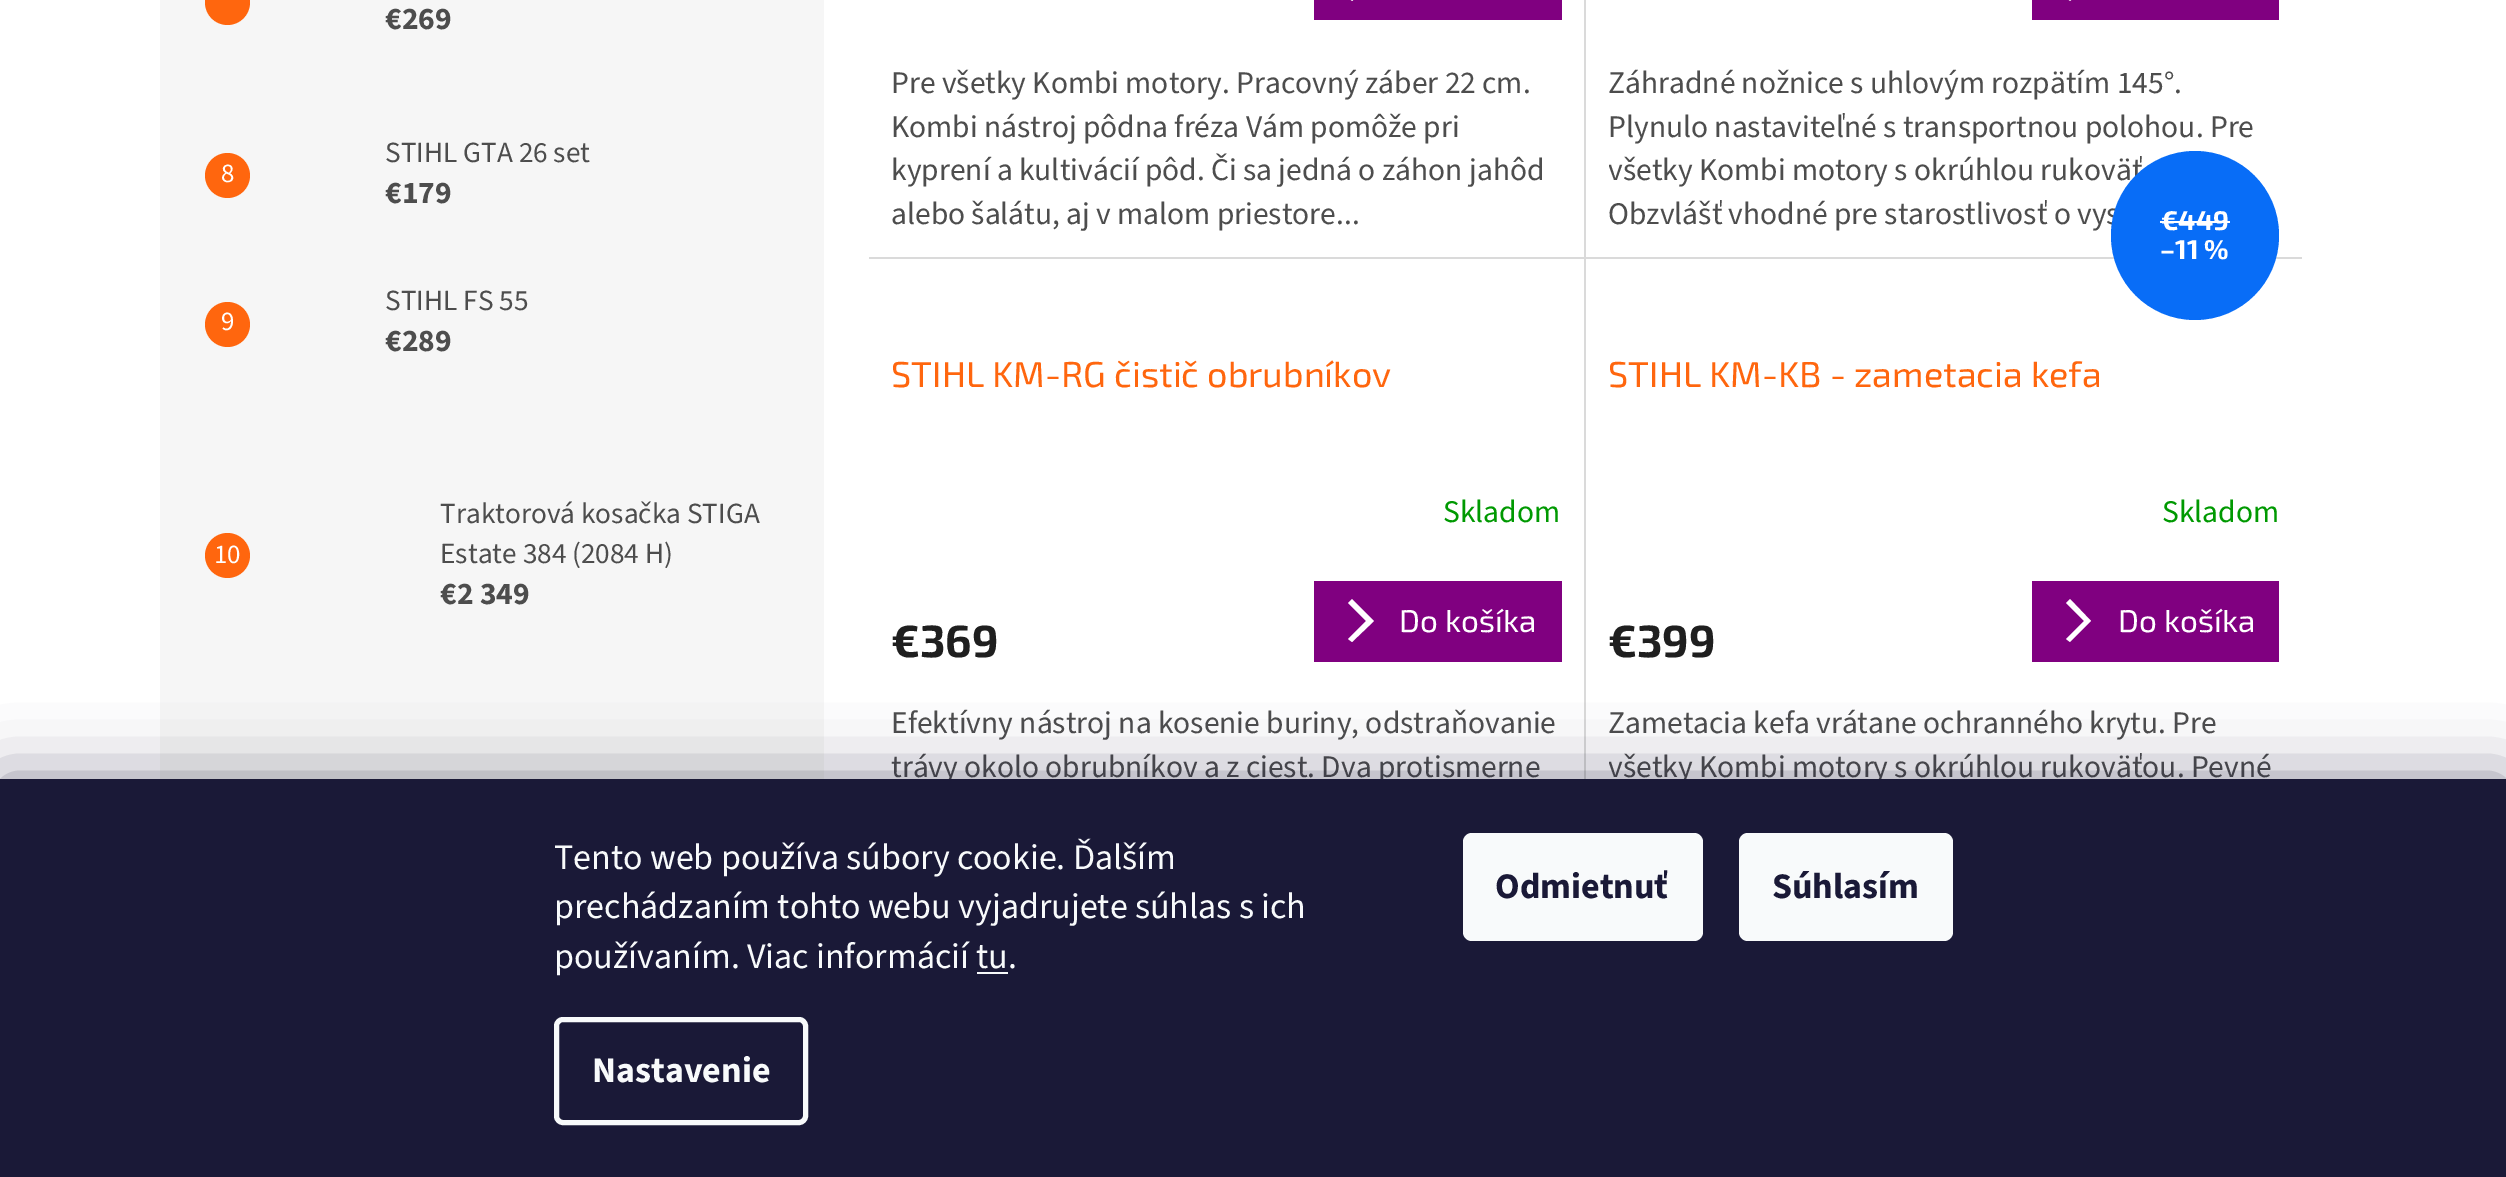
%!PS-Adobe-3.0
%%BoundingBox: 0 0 2506 1177
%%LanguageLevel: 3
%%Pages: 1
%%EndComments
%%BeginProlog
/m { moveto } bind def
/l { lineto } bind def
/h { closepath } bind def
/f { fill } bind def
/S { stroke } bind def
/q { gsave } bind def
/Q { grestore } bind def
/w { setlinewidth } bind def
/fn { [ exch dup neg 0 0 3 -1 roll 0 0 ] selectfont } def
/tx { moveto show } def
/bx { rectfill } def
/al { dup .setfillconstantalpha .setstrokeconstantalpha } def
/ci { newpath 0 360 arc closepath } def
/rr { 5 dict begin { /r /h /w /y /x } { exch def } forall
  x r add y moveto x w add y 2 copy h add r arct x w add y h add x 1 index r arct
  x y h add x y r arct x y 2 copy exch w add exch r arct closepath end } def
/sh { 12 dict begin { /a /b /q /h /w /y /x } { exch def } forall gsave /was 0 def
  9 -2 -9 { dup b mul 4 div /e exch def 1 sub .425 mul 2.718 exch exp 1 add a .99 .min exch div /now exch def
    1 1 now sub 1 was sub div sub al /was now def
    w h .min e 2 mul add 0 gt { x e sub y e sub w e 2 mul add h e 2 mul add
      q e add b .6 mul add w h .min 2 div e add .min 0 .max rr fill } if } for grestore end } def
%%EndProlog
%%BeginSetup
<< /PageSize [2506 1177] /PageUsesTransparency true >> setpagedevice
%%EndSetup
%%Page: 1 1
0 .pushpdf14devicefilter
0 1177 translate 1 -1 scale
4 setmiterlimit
1 setgray
0 0 2506 1177 bx
0.965 setgray
160 0 664 779 bx
1 0.4 0.055 setrgbcolor
227.5 2.5 22.5 ci f
/SourceSans3-Bold 31.5 fn
0.302 setgray
(€269) 385 29 tx
1 0.4 0.055 setrgbcolor
227.5 175.5 22.5 ci f
/SourceSans3-Regular 27 fn
1 setgray
(8) 221 182 tx
/SourceSans3-Regular 29.25 fn
0.302 setgray
(STIHL GTA 26 set) 385 162 tx
/SourceSans3-Bold 31.5 fn
(€179) 385 203 tx
1 0.4 0.055 setrgbcolor
227.5 324.5 22.5 ci f
/SourceSans3-Regular 27 fn
1 setgray
(9) 221 330 tx
/SourceSans3-Regular 29.25 fn
0.302 setgray
(STIHL FS 55) 385 310 tx
/SourceSans3-Bold 31.5 fn
(€289) 385 351 tx
1 0.4 0.055 setrgbcolor
227.5 555.5 22.5 ci f
/SourceSans3-Regular 27 fn
1 setgray
(10) 214 563 tx
/SourceSans3-Regular 29.25 fn
0.302 setgray
(Traktorová kosačka STIGA) 440 523 tx
(Estate 384 \(2084 H\)) 440 563 tx
/SourceSans3-Bold 31.5 fn
(€2 349) 440 604 tx
0.855 setgray
1584 0 2 257 bx
0.502 0 0.502 setrgbcolor
1314 0 248 20 bx
1 setgray
1352 1 m 1348 -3 l 1366 -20 l 1348 -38 l 1352 -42 l 1374 -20 l h f
/SourceSans3-Regular 31.5 fn
0.302 setgray
(Pre všetky Kombi motory. Pracovný záber 22 cm.) 891 93 tx
(Kombi nástroj pôdna fréza Vám pomôže pri) 891 137 tx
(kyprení a kultivácií pôd. Či sa jedná o záhon jahôd) 891 180 tx
(alebo šalátu, aj v malom priestore...) 891 224 tx
0.502 0 0.502 setrgbcolor
2032 0 247 20 bx
1 setgray
2070 1 m 2066 -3 l 2084 -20 l 2066 -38 l 2070 -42 l 2091 -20 l h f
0.302 setgray
(Záhradné nožnice s uhlovým rozpätím 145°.) 1608 93 tx
(Plynulo nastaviteľné s transportnou polohou. Pre) 1608 137 tx
q
1609 63 670 171 rectclip
(všetky Kombi motory s okrúhlou rukoväť) 1608 180 tx
Q
(Obzvlášť vhodné pre starostlivosť o vys) 1608 224 tx
0.855 setgray
869 257 1433 2 bx
1584 257 2 522 bx
/Exo2-Regular 36 fn
1 0.4 0.055 setrgbcolor
(STIHL KM-RG čistič obrubníkov) 891 387 tx
/SourceSans3-Regular 31.5 fn
0 0.6 0.004 setrgbcolor
(Skladom) 1443 522 tx
0.502 0 0.502 setrgbcolor
1314 581 248 81 bx
1 setgray
1352 642 m 1348 639 l 1366 621 l 1348 603 l 1352 599 l 1374 621 l h f
/Exo2-Regular 31.5 fn
(Do košíka) 1399 632 tx
/Exo2-Bold 45 fn
0.122 setgray
(€369) 891 657 tx
/SourceSans3-Regular 31.5 fn
0.302 setgray
(Efektívny nástroj na kosenie buriny, odstraňovanie) 891 733 tx
(trávy okolo obrubníkov a z ciest. Dva protismerne) 891 777 tx
0.031 0.427 0.969 setrgbcolor
2111 151 168 169 84 rr f
/Exo2-Bold 27 fn
1 setgray
(€449) 2161 230 tx
2160 221 70 2 bx
(–11 %) 2160 259 tx
/Exo2-Regular 36 fn
1 0.4 0.055 setrgbcolor
(STIHL KM-KB - zametacia kefa) 1608 387 tx
/SourceSans3-Regular 31.5 fn
0 0.6 0.004 setrgbcolor
(Skladom) 2162 522 tx
0.502 0 0.502 setrgbcolor
2032 581 247 81 bx
1 setgray
2070 642 m 2066 639 l 2084 621 l 2066 603 l 2070 599 l 2091 621 l h f
/Exo2-Regular 31.5 fn
(Do košíka) 2118 632 tx
/Exo2-Bold 45 fn
0.122 setgray
(€399) 1608 657 tx
/SourceSans3-Regular 31.5 fn
0.302 setgray
(Zametacia kefa vrátane ochranného krytu. Pre) 1608 733 tx
q
1609 704 670 171 rectclip
(všetky Kombi motory s okrúhlou rukoväťou. Pevné) 1608 777 tx
Q
0.106 0.098 0.224 setrgbcolor
0 779 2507 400 0 34 0.5 sh
0.102 0.098 0.216 setrgbcolor
0 779 2506 398 bx
/SourceSans3-Regular 36 fn
0.973 0.98 0.984 setrgbcolor
(Tento web používa súbory cookie. Ďalším) 554 869 tx
(prechádzaním tohto webu vyjadrujete súhlas s ich) 554 918 tx
(používaním. Viac informácií tu.) 554 968 tx
977 972 31 2 bx
5 w
556.5 1019.5 249 103 6.5 rr S
/SourceSans3-Bold 36 fn
(Nastavenie) 592 1082 tx
1463 833 240 108 9 rr f
0.102 0.098 0.216 setrgbcolor
(Odmietnuť) 1495 898 tx
0.973 0.98 0.984 setrgbcolor
1739 833 214 108 9 rr f
0.102 0.098 0.216 setrgbcolor
(Súhlasím) 1772 898 tx
.poppdf14devicefilter showpage
%%EOF
